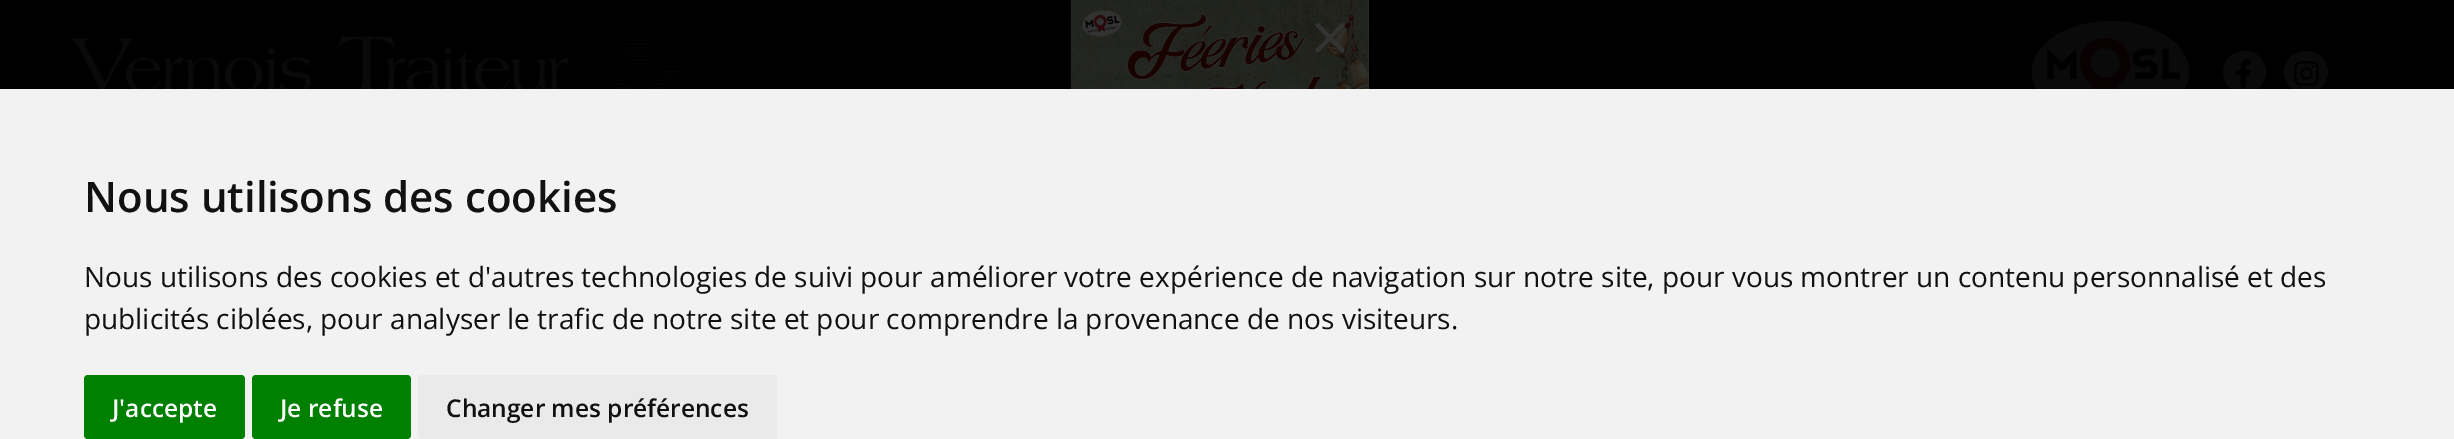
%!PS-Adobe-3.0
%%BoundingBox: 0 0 2454 439
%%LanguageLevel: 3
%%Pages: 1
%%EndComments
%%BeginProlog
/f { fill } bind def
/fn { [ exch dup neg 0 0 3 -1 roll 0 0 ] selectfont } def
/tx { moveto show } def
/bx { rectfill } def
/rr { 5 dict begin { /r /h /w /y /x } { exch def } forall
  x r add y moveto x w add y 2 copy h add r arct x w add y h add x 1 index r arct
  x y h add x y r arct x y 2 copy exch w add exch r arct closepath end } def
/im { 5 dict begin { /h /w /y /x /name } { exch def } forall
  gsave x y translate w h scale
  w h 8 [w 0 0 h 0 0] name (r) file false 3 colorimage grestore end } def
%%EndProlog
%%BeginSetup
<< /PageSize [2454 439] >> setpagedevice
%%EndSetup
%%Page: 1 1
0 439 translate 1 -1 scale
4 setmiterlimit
0 setgray
0 0 2454 439 bx
0.2 setgray
1071 0 298 89 bx
(image0.raw) 1070 0 299 89 im
(image1.raw) 1315 22 30 31 im
(image2.raw) 71 31 610 58 im
(image3.raw) 2031 21 159 68 im
0.039 setgray
2223 51 43 42 21 rr f
(image4.raw) 2236 59 15 29 im
2284 51 44 42 21 rr f
(image5.raw) 2294 61 25 25 im
0.949 setgray
0 89 2454 350 bx
/OpenSans-SemiBold 42 fn
0.067 setgray
(Nous utilisons des cookies) 84 212 tx
/OpenSans-Regular 28 fn
(Nous utilisons des cookies et d'autres technologies de suivi pour améliorer votre expérience de navigation sur notre site, pour vous montrer un contenu personnalisé et des) 84 287 tx
(publicités ciblées, pour analyser le trafic de notre site et pour comprendre la provenance de nos visiteurs.) 84 329 tx
0 0.502 0 setrgbcolor
84 375 161 64 4 rr f
/OpenSans-SemiBold 24.5 fn
1 setgray
(J'accepte) 112 417 tx
0 0.502 0 setrgbcolor
252 375 159 64 4 rr f
1 setgray
(Je refuse) 280 417 tx
0.918 setgray
418 375 359 64 4 rr f
0.067 setgray
(Changer mes préférences) 446 417 tx
showpage
%%EOF
